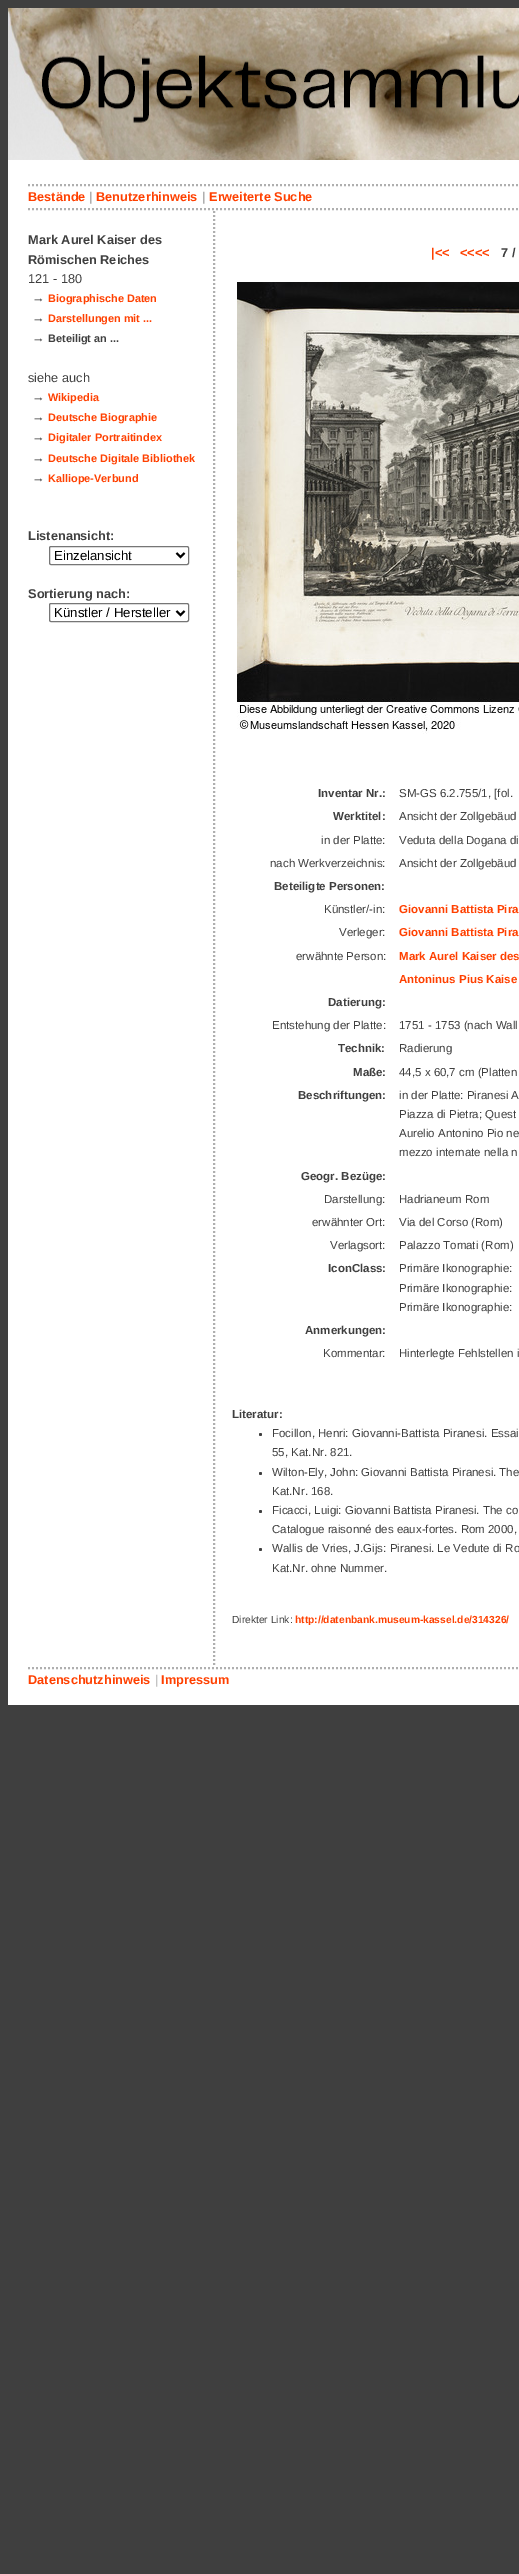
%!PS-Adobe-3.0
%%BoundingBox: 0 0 519 2574
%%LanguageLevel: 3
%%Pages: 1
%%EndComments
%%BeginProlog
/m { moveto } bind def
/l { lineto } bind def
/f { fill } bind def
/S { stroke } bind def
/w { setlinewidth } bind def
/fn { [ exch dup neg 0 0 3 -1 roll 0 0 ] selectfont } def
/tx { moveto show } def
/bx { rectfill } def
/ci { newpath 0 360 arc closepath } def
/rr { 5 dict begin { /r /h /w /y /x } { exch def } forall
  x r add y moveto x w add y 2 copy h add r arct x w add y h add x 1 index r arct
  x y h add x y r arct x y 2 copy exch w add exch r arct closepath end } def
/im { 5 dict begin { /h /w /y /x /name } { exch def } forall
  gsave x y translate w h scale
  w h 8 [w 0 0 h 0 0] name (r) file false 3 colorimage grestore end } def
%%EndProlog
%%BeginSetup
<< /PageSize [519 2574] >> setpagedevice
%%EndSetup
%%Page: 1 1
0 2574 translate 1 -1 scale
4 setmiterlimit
0.247 setgray
0 0 519 2574 bx
1 setgray
8 160 511 1545 bx
(image0.raw) 8 8 511 152 im
0.686 setgray
2 w
[2 2] 0 setdash
28 185 m 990 185 l S
/LiberationSans-Bold 12.75 fn
1 0.251 0 setrgbcolor
(Bestände) 28 201 tx
0.686 setgray
(|) 89 201 tx
1 0.251 0 setrgbcolor
(Benutzerhinweis) 96 201 tx
0.686 setgray
(|) 202 201 tx
1 0.251 0 setrgbcolor
(Erweiterte Suche) 209 201 tx
0.686 setgray
28 209 m 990 209 l S
0.247 setgray
(Mark Aurel Kaiser des) 28 244 tx
(Römischen Reiches) 28 264 tx
/LiberationSans-Regular 12.75 fn
(121 - 180) 28 283 tx
/LiberationSans-Bold 12.75 fn
(→) 32 302 tx
/LiberationSans-Bold 10.9 fn
1 0.251 0 setrgbcolor
(Biographische Daten) 48 302 tx
/LiberationSans-Bold 12.75 fn
0.247 setgray
(→) 32 322 tx
/LiberationSans-Bold 10.9 fn
1 0.251 0 setrgbcolor
(Darstellungen mit ...) 48 322 tx
/LiberationSans-Bold 12.75 fn
0.247 setgray
(→) 32 342 tx
/LiberationSans-Bold 10.9 fn
(Beteiligt an ...) 48 342 tx
/LiberationSans-Regular 12.75 fn
(siehe auch) 28 382 tx
/LiberationSans-Bold 12.75 fn
(→) 32 401 tx
/LiberationSans-Bold 10.9 fn
1 0.251 0 setrgbcolor
(Wikipedia) 48 401 tx
/LiberationSans-Bold 12.75 fn
0.247 setgray
(→) 32 421 tx
/LiberationSans-Bold 10.9 fn
1 0.251 0 setrgbcolor
(Deutsche Biographie) 48 421 tx
/LiberationSans-Bold 12.75 fn
0.247 setgray
(→) 32 441 tx
/LiberationSans-Bold 10.9 fn
1 0.251 0 setrgbcolor
(Digitaler Portraitindex) 48 441 tx
/LiberationSans-Bold 12.75 fn
0.247 setgray
(→) 32 462 tx
/LiberationSans-Bold 10.9 fn
1 0.251 0 setrgbcolor
(Deutsche Digitale Bibliothek) 48 462 tx
/LiberationSans-Bold 12.75 fn
0.247 setgray
(→) 32 482 tx
/LiberationSans-Bold 10.9 fn
1 0.251 0 setrgbcolor
(Kalliope-Verbund) 48 482 tx
/LiberationSans-Bold 12.75 fn
0.247 setgray
(Listenansicht:) 28 540 tx
0.463 setgray
1 w
[] 0 setdash
49.5 546.5 139 18 1.5 rr S
0 setgray
2 w
176.5 553 m 180.5 557 l 184.5 553 l S
/LiberationSans-Regular 13.25 fn
(Einzelansicht) 54 560 tx
/LiberationSans-Bold 12.75 fn
0.247 setgray
(Sortierung nach:) 28 598 tx
0.463 setgray
1 w
49.5 603.5 139 18 1.5 rr S
0 setgray
2 w
176.5 611 m 180.5 615 l 184.5 611 l S
/LiberationSans-Regular 13.25 fn
(Künstler / Hersteller) 54 617 tx
0.686 setgray
[2 2] 0 setdash
214 211 m 214 1667 l S
/LiberationSans-Bold 12.75 fn
1 0.251 0 setrgbcolor
(|<<) 431 257 tx
(<<<<) 460 257 tx
0.247 setgray
(7 /) 501 257 tx
(image1.raw) 237 282 282 452 im
/LiberationSans-Bold 11.5 fn
(Inventar Nr.:) 318 797 tx
/LiberationSans-Regular 11.5 fn
(SM-GS 6.2.755/1, [fol.) 399 797 tx
/LiberationSans-Bold 11.5 fn
(Werktitel:) 333 820 tx
/LiberationSans-Regular 11.5 fn
(Ansicht der Zollgebäud) 399 820 tx
(in der Platte:) 321 844 tx
(Veduta della Dogana di) 399 844 tx
(nach Werkverzeichnis:) 270 867 tx
(Ansicht der Zollgebäud) 399 867 tx
/LiberationSans-Bold 11.5 fn
(Beteiligte Personen:) 274 890 tx
/LiberationSans-Regular 11.5 fn
(Künstler/-in:) 324 913 tx
/LiberationSans-Bold 11.5 fn
1 0.251 0 setrgbcolor
(Giovanni Battista Pira) 399 913 tx
/LiberationSans-Regular 11.5 fn
0.247 setgray
(Verleger:) 339 936 tx
/LiberationSans-Bold 11.5 fn
1 0.251 0 setrgbcolor
(Giovanni Battista Pira) 399 936 tx
/LiberationSans-Regular 11.5 fn
0.247 setgray
(erwähnte Person:) 296 960 tx
/LiberationSans-Bold 11.5 fn
1 0.251 0 setrgbcolor
(Mark Aurel Kaiser des) 399 960 tx
(Antoninus Pius Kaise) 399 983 tx
0.247 setgray
(Datierung:) 328 1006 tx
/LiberationSans-Regular 11.5 fn
(Entstehung der Platte:) 272 1029 tx
(1751 - 1753 \(nach Wall) 399 1029 tx
/LiberationSans-Bold 11.5 fn
(Technik:) 338 1052 tx
/LiberationSans-Regular 11.5 fn
(Radierung) 399 1052 tx
/LiberationSans-Bold 11.5 fn
(Maße:) 353 1076 tx
/LiberationSans-Regular 11.5 fn
(44,5 x 60,7 cm \(Platten) 399 1076 tx
/LiberationSans-Bold 11.5 fn
(Beschriftungen:) 298 1099 tx
/LiberationSans-Regular 11.5 fn
(in der Platte: Piranesi A) 399 1099 tx
(Piazza di Pietra; Quest) 399 1118 tx
(Aurelio Antonino Pio ne) 399 1137 tx
(mezzo internate nella n) 399 1156 tx
/LiberationSans-Bold 11.5 fn
(Geogr. Bezüge:) 301 1180 tx
/LiberationSans-Regular 11.5 fn
(Darstellung:) 324 1203 tx
(Hadrianeum Rom) 399 1203 tx
(erwähnter Ort:) 312 1226 tx
(Via del Corso \(Rom\)) 399 1226 tx
(Verlagsort:) 330 1249 tx
(Palazzo Tomati \(Rom\)) 399 1249 tx
/LiberationSans-Bold 11.5 fn
(IconClass:) 328 1272 tx
/LiberationSans-Regular 11.5 fn
(Primäre Ikonographie:) 399 1272 tx
(Primäre Ikonographie:) 399 1292 tx
(Primäre Ikonographie:) 399 1311 tx
/LiberationSans-Bold 11.5 fn
(Anmerkungen:) 305 1334 tx
/LiberationSans-Regular 11.5 fn
(Kommentar:) 323 1357 tx
(Hinterlegte Fehlstellen i) 399 1357 tx
/LiberationSans-Bold 11.5 fn
(Literatur:) 232 1418 tx
260.5 1434.5 1.5 ci f
/LiberationSans-Regular 11.5 fn
(Focillon, Henri: Giovanni-Battista Piranesi. Essai) 272 1437 tx
(55, Kat.Nr. 821.) 272 1456 tx
260.5 1473.5 1.5 ci f
(Wilton-Ely, John: Giovanni Battista Piranesi. The) 272 1476 tx
(Kat.Nr. 168.) 272 1495 tx
260.5 1511.5 1.5 ci f
(Ficacci, Luigi: Giovanni Battista Piranesi. The co) 272 1514 tx
(Catalogue raisonné des eaux-fortes. Rom 2000,) 272 1533 tx
260.5 1549.5 1.5 ci f
(Wallis de Vries, J.Gijs: Piranesi. Le Vedute di Ro) 272 1552 tx
(Kat.Nr. ohne Nummer.) 272 1572 tx
/LiberationSans-Regular 10.25 fn
(Direkter Link:) 232 1623 tx
/LiberationSans-Bold 10.25 fn
1 0.251 0 setrgbcolor
(http://datenbank.museum-kassel.de/314326/) 295 1623 tx
0.686 setgray
28 1668 m 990 1668 l S
/LiberationSans-Bold 12.75 fn
1 0.251 0 setrgbcolor
(Datenschutzhinweis) 28 1684 tx
/LiberationSans-Regular 12.75 fn
0.686 setgray
(|) 155 1684 tx
/LiberationSans-Bold 12.75 fn
1 0.251 0 setrgbcolor
(Impressum) 161 1684 tx
showpage
%%EOF
